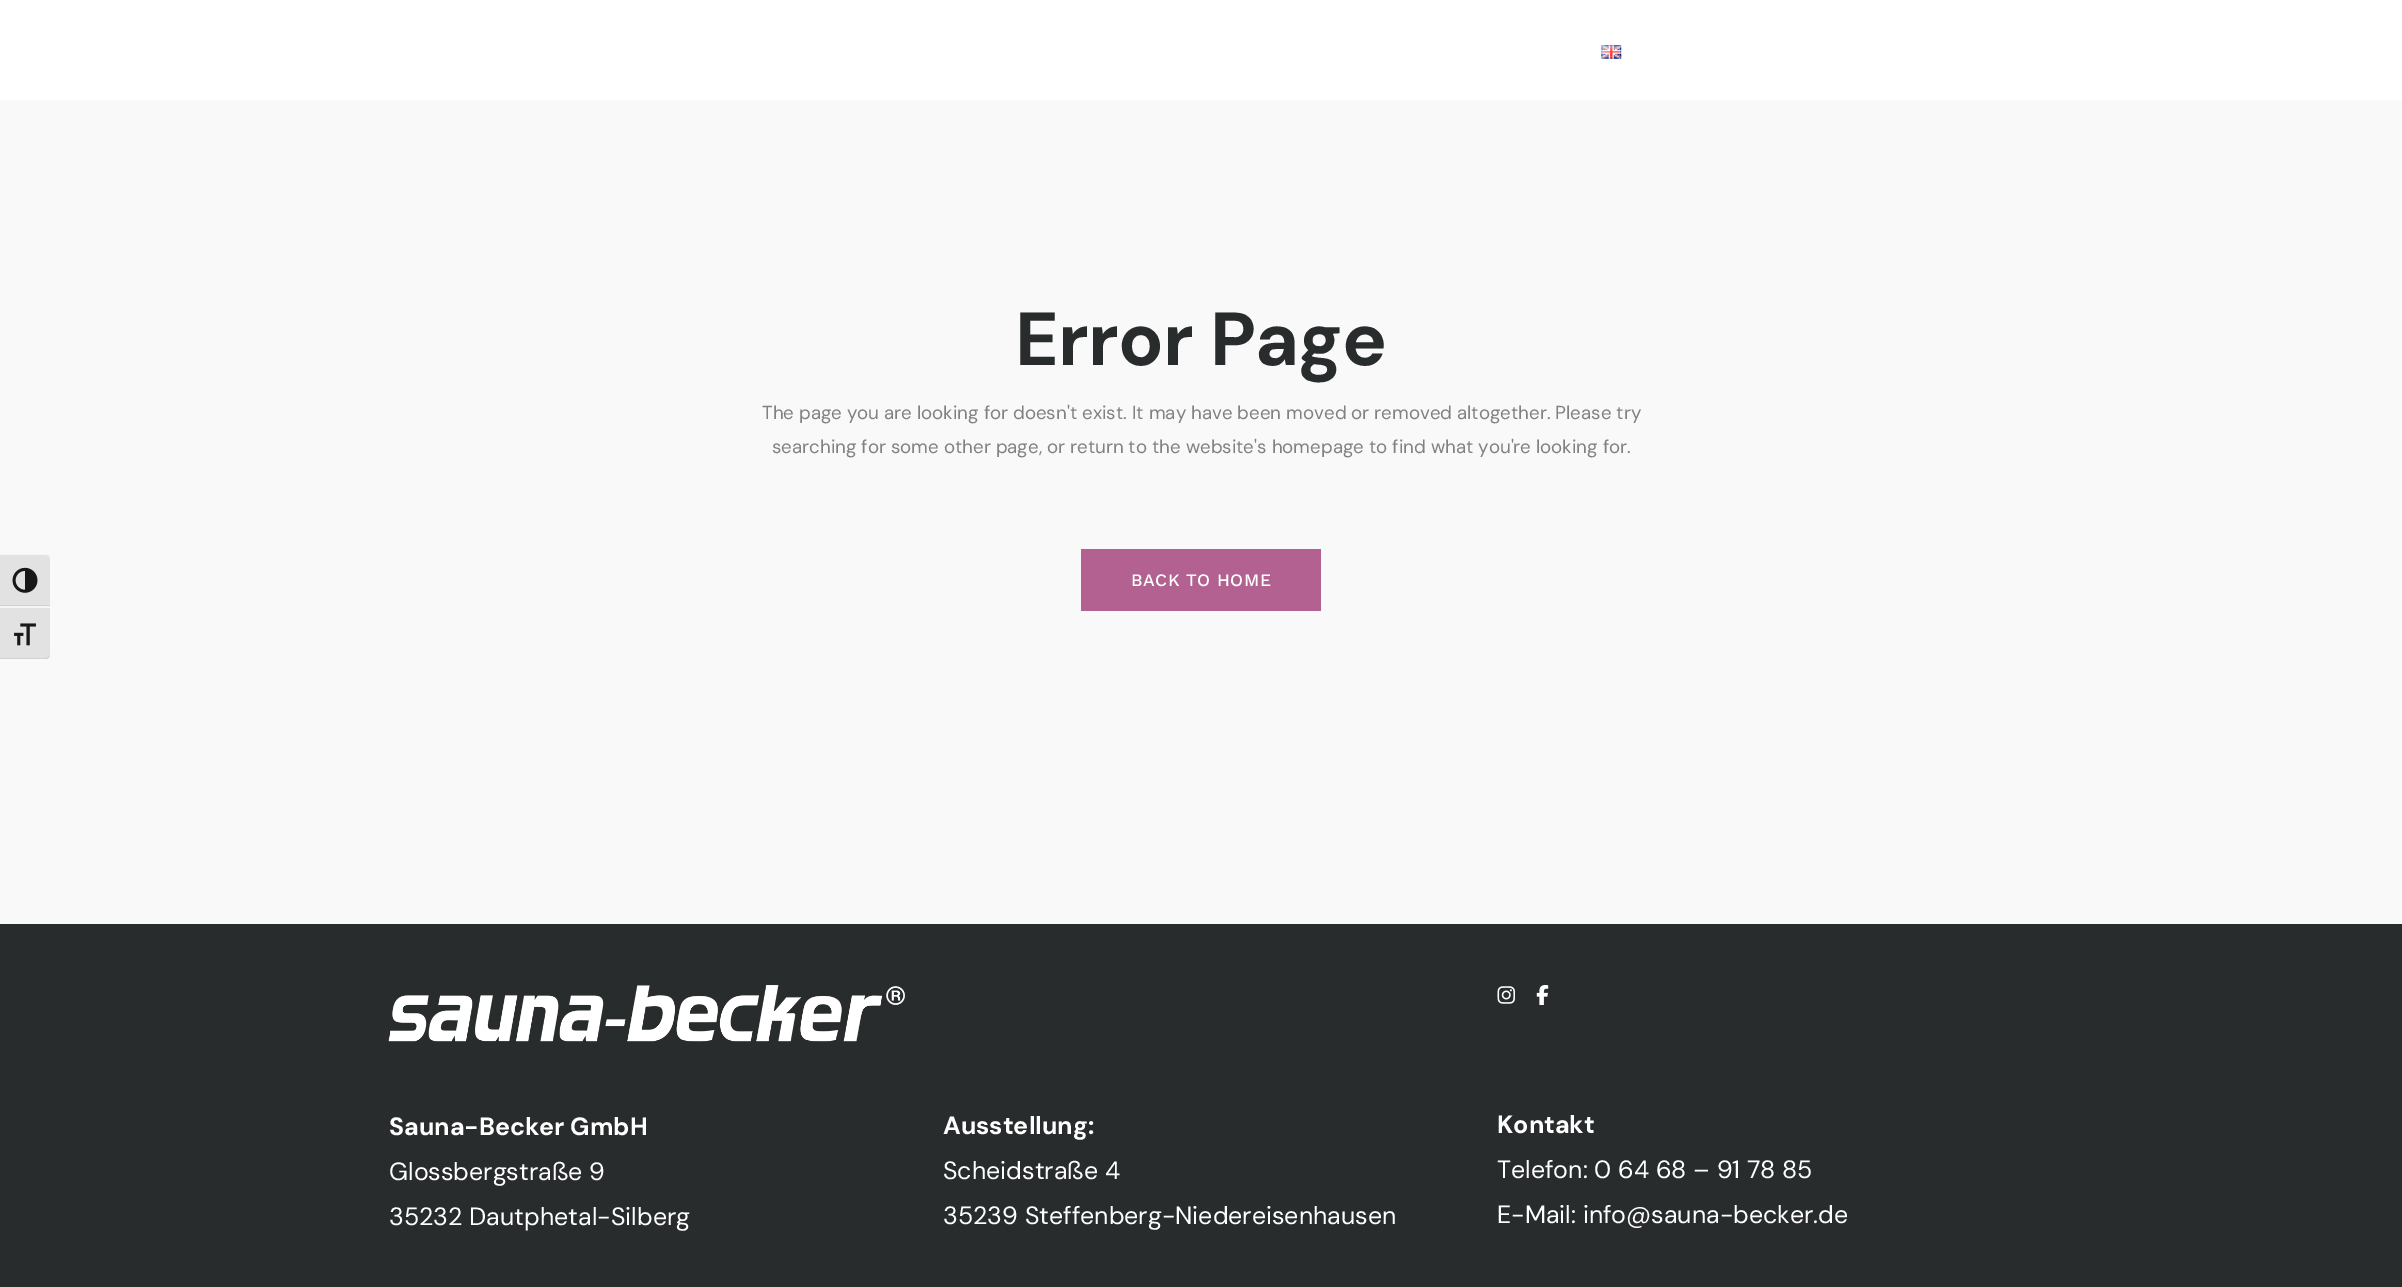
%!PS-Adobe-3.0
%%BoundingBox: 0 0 2402 1287
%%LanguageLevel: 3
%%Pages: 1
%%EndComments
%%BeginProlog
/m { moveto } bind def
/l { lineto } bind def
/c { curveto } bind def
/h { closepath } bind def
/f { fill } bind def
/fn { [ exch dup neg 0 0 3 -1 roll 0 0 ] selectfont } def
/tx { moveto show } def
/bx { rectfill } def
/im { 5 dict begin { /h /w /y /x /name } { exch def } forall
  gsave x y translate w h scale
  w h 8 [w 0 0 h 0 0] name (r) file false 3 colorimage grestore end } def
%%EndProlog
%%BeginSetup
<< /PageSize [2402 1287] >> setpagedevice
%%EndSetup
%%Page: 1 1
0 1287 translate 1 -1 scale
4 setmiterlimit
0.976 0.976 0.98 setrgbcolor
0 0 2402 1287 bx
0.886 setgray
0 554 m 45 554 l 48 554 50 556 50 559 c 50 606 l 0 606 l h f
0.961 setgray
0 555 m 45 555 l 48 555 50 557 50 559 c 50 556 48 554 45 554 c 0 554 l h f
0.824 setgray
0 605 50 1 bx
(image0.raw) 12 567 26 26 im
0.886 setgray
0 606 m 50 606 l 50 654 l 50 657 48 659 45 659 c 0 659 l h f
0.961 setgray
0 606 50 2 bx
0.824 setgray
47 659 m 49 658 50 656 50 654 c 50 656 48 658 45 658 c 0 658 l 0 659 l h f
(image1.raw) 14 623 22 23 im
1 setgray
0 0 2402 100 bx
(image2.raw) 1601 45 21 14 im
/DMSans-Bold 75 fn
0.161 0.173 0.173 setrgbcolor
1015 365 m -0.75 0 (Error Page) ashow
/DMSans-Regular 18.75 fn
0.506 setgray
(The page you are looking for doesn't exist. It may have been moved or removed altogether. Please try) 762 419 tx
(searching for some other page, or return to the website's homepage to find what you're looking for.) 772 453 tx
0.698 0.38 0.569 setrgbcolor
1081 549 240 62 bx
/WorkSans-Medium 17.5 fn
1 setgray
1131 586 m 0.5 0 (BACK TO HOME) ashow
0.161 0.173 0.173 setrgbcolor
0 924 2402 363 bx
(image3.raw) 388 985 517 57 im
/DMSans-Bold 25 fn
1 setgray
(Sauna-Becker GmbH) 389 1135 tx
/DMSans-Regular 25 fn
(Glossbergstraße 9) 389 1180 tx
(35232 Dautphetal-Silberg) 389 1225 tx
/DMSans-Bold 25 fn
(Ausstellung:) 943 1134 tx
/DMSans-Regular 25 fn
(Scheidstraße 4) 943 1179 tx
(35239 Steffenberg-Niedereisenhausen) 943 1224 tx
(image4.raw) 1497 986 18 18 im
(image5.raw) 1536 985 13 20 im
/DMSans-Bold 25 fn
(Kontakt) 1497 1133 tx
/DMSans-Regular 25 fn
(Telefon: 0 64 68 – 91 78 85) 1497 1178 tx
(E-Mail: info@sauna-becker.de) 1497 1223 tx
showpage
%%EOF
